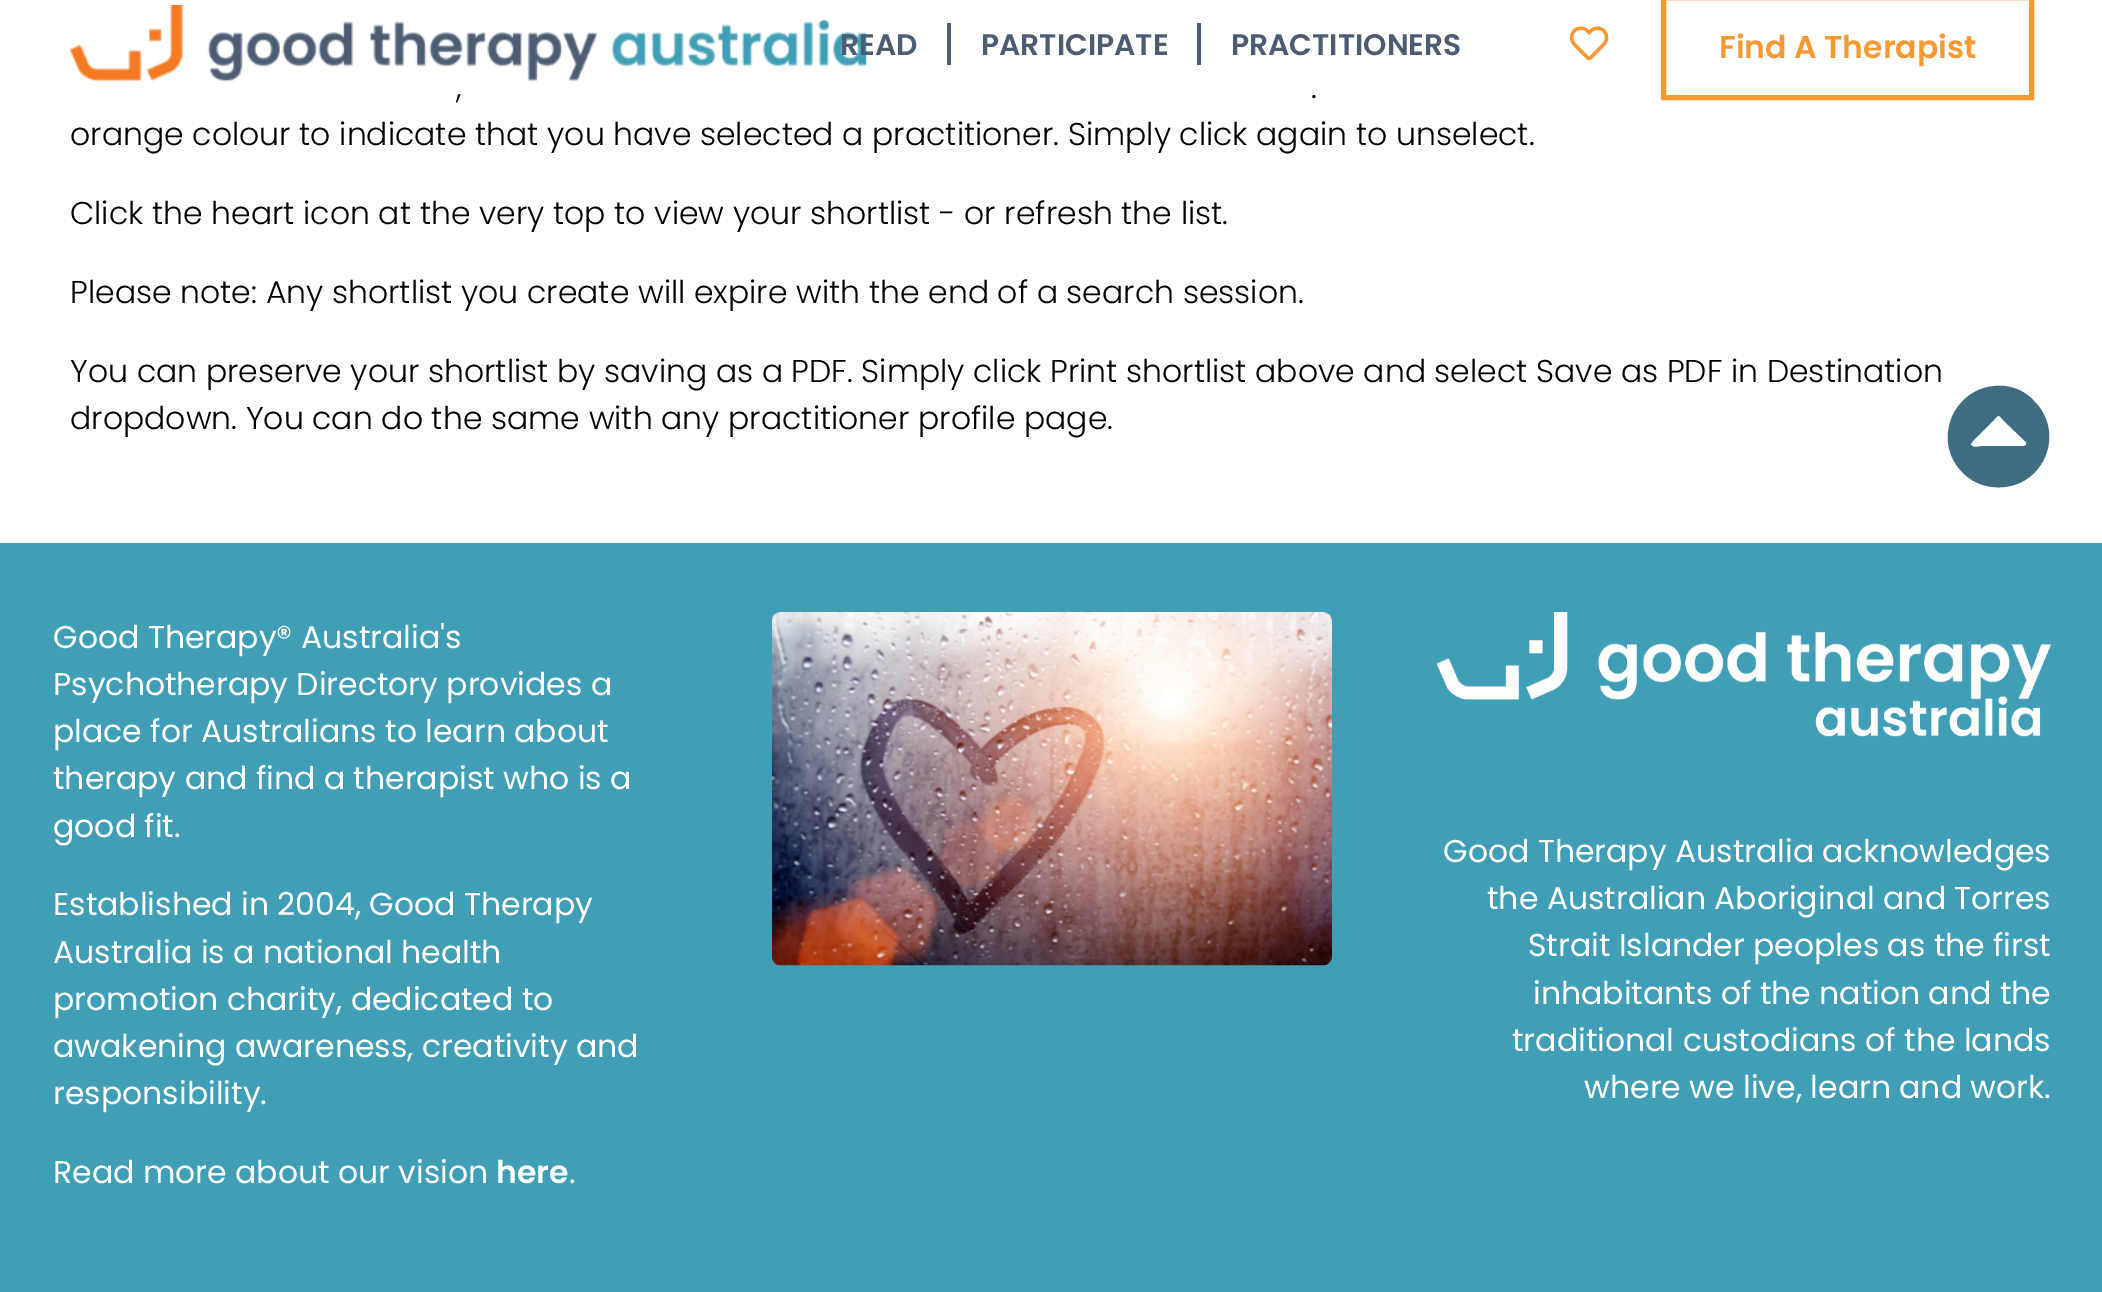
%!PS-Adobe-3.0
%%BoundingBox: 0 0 2102 1292
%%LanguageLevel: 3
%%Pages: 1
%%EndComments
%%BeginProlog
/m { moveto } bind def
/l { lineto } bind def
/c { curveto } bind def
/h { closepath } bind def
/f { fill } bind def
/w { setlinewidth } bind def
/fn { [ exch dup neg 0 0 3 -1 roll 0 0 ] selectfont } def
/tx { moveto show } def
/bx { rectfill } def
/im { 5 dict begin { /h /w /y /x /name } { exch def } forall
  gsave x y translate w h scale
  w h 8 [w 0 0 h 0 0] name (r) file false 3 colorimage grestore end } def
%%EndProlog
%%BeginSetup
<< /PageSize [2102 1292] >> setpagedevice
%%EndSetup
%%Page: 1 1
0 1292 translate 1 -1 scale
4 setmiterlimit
1 setgray
0 0 2102 1292 bx
(image0.raw) 70 5 797 77 im
/Poppins-SemiBold 29.75 fn
0.298 0.365 0.451 setrgbcolor
(READ) 840 55 tx
(PARTICIPATE) 981 55 tx
947 23 4 42 bx
(PRACTITIONERS) 1231 55 tx
1197 23 4 42 bx
(image1.raw) 1569 26 40 35 im
0.969 0.596 0.192 setrgbcolor
5 w
1663.5 -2.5 368 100 rectstroke
/Poppins-SemiBold 31.5 fn
(Find A Therapist) 1719 58 tx
/Poppins-Light 31.5 fn
0 setgray
(,) 456 98 tx
(.) 1311 98 tx
(orange colour to indicate that you have selected a practitioner. Simply click again to unselect.) 70 145 tx
(Click the heart icon at the very top to view your shortlist - or refresh the list.) 70 224 tx
(Please note: Any shortlist you create will expire with the end of a search session.) 70 303 tx
(You can preserve your shortlist by saving as a PDF. Simply click Print shortlist above and select Save as PDF in Destination) 70 382 tx
(dropdown. You can do the same with any practitioner profile page.) 70 429 tx
0.247 0.431 0.514 setrgbcolor
1963 473 m 1929 439 1956 382 2004 386 c 2015 387 2026 392 2034 401 c 2068 435 2041 492 1993 487 c 1982 486 1971 481 1963 473 c h 2026 442 m 2004 421 l 1998 414 1999 414 1993 421 c 1984 430 l 1982 432 1971 442 1971 444 c 1971 449 1981 446 1982 446 c 2024 446 l 2026 446 2027 444 2026 442 c h f
0.251 0.624 0.714 setrgbcolor
0 543 2102 749 bx
/Poppins-Regular 31.5 fn
1 setgray
(Good Therapy® Australia's) 53 648 tx
(Psychotherapy Directory provides a) 53 695 tx
(place for Australians to learn about) 53 742 tx
(therapy and find a therapist who is a) 53 789 tx
(good fit.) 53 837 tx
(Established in 2004, Good Therapy) 53 915 tx
(Australia is a national health) 53 963 tx
(promotion charity, dedicated to) 53 1010 tx
(awakening awareness, creativity and) 53 1057 tx
(responsibility.) 53 1104 tx
(Read more about our vision) 53 1183 tx
/Poppins-SemiBold 31.5 fn
(here) 496 1183 tx
/Poppins-Regular 31.5 fn
(.) 569 1183 tx
(image2.raw) 772 612 560 354 im
(image3.raw) 1437 612 614 125 im
(Good Therapy Australia acknowledges) 1443 862 tx
(the Australian Aboriginal and Torres) 1487 909 tx
(Strait Islander peoples as the first) 1528 956 tx
(inhabitants of the nation and the) 1533 1004 tx
(traditional custodians of the lands) 1512 1051 tx
(where we live, learn and work.) 1584 1098 tx
showpage
%%EOF
